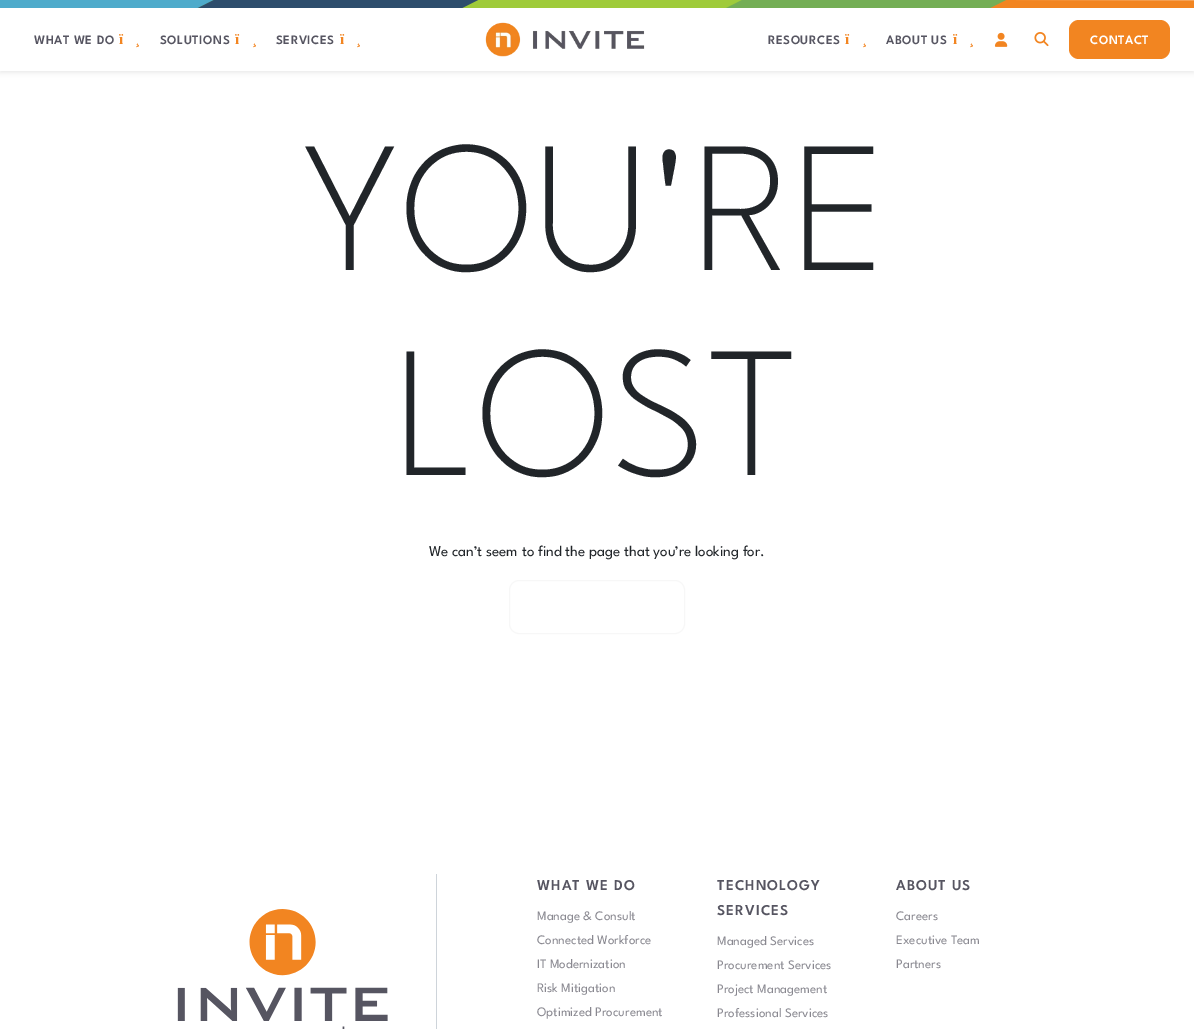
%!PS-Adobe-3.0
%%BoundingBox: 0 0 1194 1029
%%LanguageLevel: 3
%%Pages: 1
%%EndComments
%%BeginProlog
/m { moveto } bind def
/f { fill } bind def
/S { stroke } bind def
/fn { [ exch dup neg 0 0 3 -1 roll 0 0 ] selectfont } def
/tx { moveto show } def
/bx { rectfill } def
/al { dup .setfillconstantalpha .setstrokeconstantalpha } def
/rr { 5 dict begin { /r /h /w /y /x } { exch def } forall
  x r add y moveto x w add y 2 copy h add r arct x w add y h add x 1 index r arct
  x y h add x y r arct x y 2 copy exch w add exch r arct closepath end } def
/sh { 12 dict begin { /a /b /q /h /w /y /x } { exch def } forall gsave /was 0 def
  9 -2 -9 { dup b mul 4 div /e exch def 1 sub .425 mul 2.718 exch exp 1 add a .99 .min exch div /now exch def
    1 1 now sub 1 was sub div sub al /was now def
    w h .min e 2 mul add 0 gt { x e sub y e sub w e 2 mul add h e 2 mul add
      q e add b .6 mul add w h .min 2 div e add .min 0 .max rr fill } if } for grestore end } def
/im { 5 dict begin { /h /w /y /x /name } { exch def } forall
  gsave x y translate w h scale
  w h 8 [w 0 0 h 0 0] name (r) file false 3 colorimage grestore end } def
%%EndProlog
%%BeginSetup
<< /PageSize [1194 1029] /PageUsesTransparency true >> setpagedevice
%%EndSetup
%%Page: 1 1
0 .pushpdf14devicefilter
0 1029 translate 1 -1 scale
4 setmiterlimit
1 setgray
0 0 1194 1029 bx
0 setgray
0 2 1194 71 0 2 0.07 sh
1 setgray
0 8 1194 63 bx
(image0.raw) 0 0 1194 8 im
/LeagueSpartan-SemiBold 12.75 fn
0.337 0.333 0.38 setrgbcolor
34 44 m 0.5 0 (WHAT WE DO) ashow
/LiberationSerif-Bold 15 fn
0.949 0.522 0.129 setrgbcolor
(ï) 119 44 tx
(¸) 135 44 tx
/LeagueSpartan-SemiBold 12.75 fn
0.337 0.333 0.38 setrgbcolor
160 44 m 0.5 0 (SOLUTIONS) ashow
/LiberationSerif-Bold 15 fn
0.949 0.522 0.129 setrgbcolor
(ï) 235 44 tx
(¸) 252 44 tx
/LeagueSpartan-SemiBold 12.75 fn
0.337 0.333 0.38 setrgbcolor
276 44 m 0.5 0 (SERVICES) ashow
/LiberationSerif-Bold 15 fn
0.949 0.522 0.129 setrgbcolor
(ï) 340 44 tx
(¸) 356 44 tx
(image1.raw) 485 22 160 35 im
/LeagueSpartan-SemiBold 12.75 fn
0.337 0.333 0.38 setrgbcolor
768 44 m 0.5 0 (RESOURCES) ashow
/LiberationSerif-Bold 15 fn
0.949 0.522 0.129 setrgbcolor
(ï) 845 44 tx
(¸) 862 44 tx
/LeagueSpartan-SemiBold 12.75 fn
0.337 0.333 0.38 setrgbcolor
886 44 m 0.5 0 (ABOUT US) ashow
/LiberationSerif-Bold 15 fn
0.949 0.522 0.129 setrgbcolor
(ï) 953 44 tx
(¸) 969 44 tx
(image2.raw) 994 32 14 15 im
(image3.raw) 1034 32 15 15 im
1069 20 101 39 10 rr f
/LeagueSpartan-SemiBold 12.75 fn
1 setgray
1090 44 m 0.5 0 (CONTACT) ashow
/LeagueSpartan-ExtraLight 187.5 fn
0.129 0.145 0.161 setrgbcolor
303 270 m 1 0 (YOU'RE) ashow
395 475 m 1 0 (LOST) ashow
/LeagueSpartan-Regular 15 fn
(We can’t seem to find the page that you’re looking for.) 429 556 tx
0.969 setgray
509.5 580.5 175 53 9.5 rr S
0.808 0.831 0.855 setrgbcolor
436 874 1 155 bx
(image4.raw) 177 909 211 120 im
/LeagueSpartan-SemiBold 15 fn
0.337 0.333 0.38 setrgbcolor
537 890 m 1 0 (WHAT WE DO) ashow
/LeagueSpartan-Regular 13 fn
0.537 0.533 0.565 setrgbcolor
(Manage & Consult) 537 920 tx
(Connected Workforce) 537 944 tx
(IT Modernization) 537 968 tx
(Risk Mitigation) 537 992 tx
(Optimized Procurement) 537 1016 tx
/LeagueSpartan-SemiBold 15 fn
0.337 0.333 0.38 setrgbcolor
717 890 m 1 0 (TECHNOLOGY) ashow
717 915 m 1 0 (SERVICES) ashow
/LeagueSpartan-Regular 13 fn
0.537 0.533 0.565 setrgbcolor
(Managed Services) 717 945 tx
(Procurement Services) 717 969 tx
(Project Management) 717 993 tx
(Professional Services) 717 1017 tx
/LeagueSpartan-SemiBold 15 fn
0.337 0.333 0.38 setrgbcolor
896 890 m 1 0 (ABOUT US) ashow
/LeagueSpartan-Regular 13 fn
0.537 0.533 0.565 setrgbcolor
(Careers) 896 920 tx
(Executive Team) 896 944 tx
(Partners) 896 968 tx
.poppdf14devicefilter showpage
%%EOF
